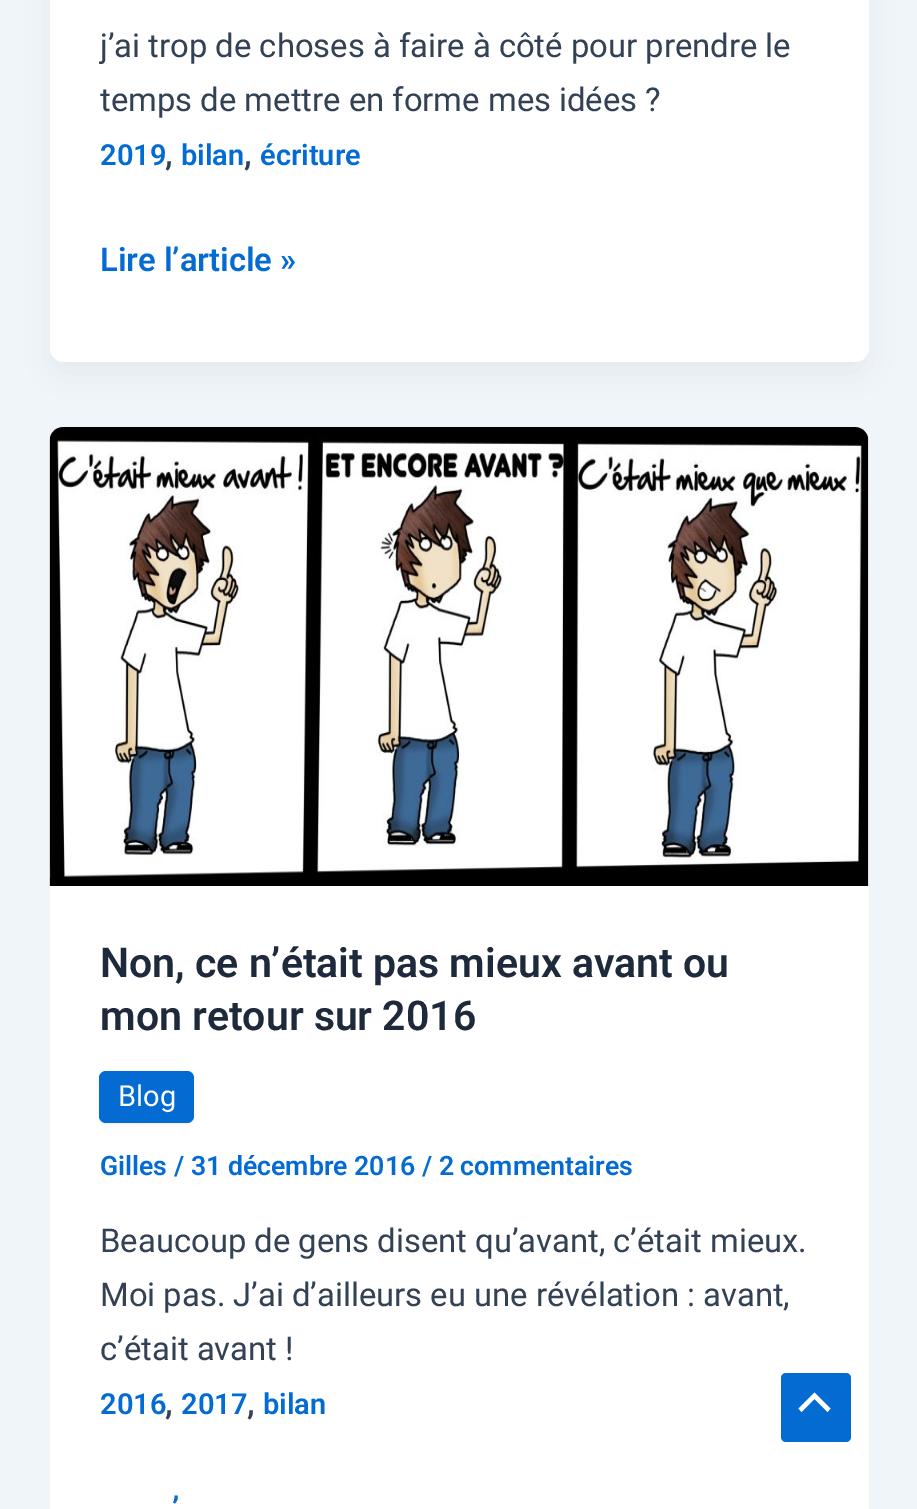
%!PS-Adobe-3.0
%%BoundingBox: 0 0 917 1509
%%LanguageLevel: 3
%%Pages: 1
%%EndComments
%%BeginProlog
/m { moveto } bind def
/l { lineto } bind def
/h { closepath } bind def
/f { fill } bind def
/fn { [ exch dup neg 0 0 3 -1 roll 0 0 ] selectfont } def
/tx { moveto show } def
/bx { rectfill } def
/al { dup .setfillconstantalpha .setstrokeconstantalpha } def
/rr { 5 dict begin { /r /h /w /y /x } { exch def } forall
  x r add y moveto x w add y 2 copy h add r arct x w add y h add x 1 index r arct
  x y h add x y r arct x y 2 copy exch w add exch r arct closepath end } def
/sh { 12 dict begin { /a /b /q /h /w /y /x } { exch def } forall gsave /was 0 def
  9 -2 -9 { dup b mul 4 div /e exch def 1 sub .425 mul 2.718 exch exp 1 add a .99 .min exch div /now exch def
    1 1 now sub 1 was sub div sub al /was now def
    w h .min e 2 mul add 0 gt { x e sub y e sub w e 2 mul add h e 2 mul add
      q e add b .6 mul add w h .min 2 div e add .min 0 .max rr fill } if } for grestore end } def
/im { 5 dict begin { /h /w /y /x /name } { exch def } forall
  gsave x y translate w h scale
  w h 8 [w 0 0 h 0 0] name (r) file false 3 colorimage grestore end } def
%%EndProlog
%%BeginSetup
<< /PageSize [917 1509] /PageUsesTransparency true >> setpagedevice
%%EndSetup
%%Page: 1 1
0 .pushpdf14devicefilter
0 1509 translate 1 -1 scale
4 setmiterlimit
0.941 0.961 0.98 setrgbcolor
0 0 917 1509 bx
0.063 0.094 0.157 setrgbcolor
54 -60 810 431 9 17 0.05 sh
1 setgray
50 -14 819 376 14 rr f
/Roboto-Regular 32.8 fn
0.2 0.255 0.333 setrgbcolor
(j’ai trop de choses à faire à côté pour prendre le) 100 57 tx
(temps de mettre en forme mes idées ?) 100 111 tx
/Roboto-SemiBold 29 fn
0.016 0.42 0.824 setrgbcolor
(2019) 100 165 tx
/Roboto-SemiBold 32.8 fn
0.2 0.255 0.333 setrgbcolor
(,) 165 165 tx
/Roboto-SemiBold 29 fn
0.016 0.42 0.824 setrgbcolor
(bilan) 181 165 tx
/Roboto-SemiBold 32.8 fn
0.2 0.255 0.333 setrgbcolor
(,) 244 165 tx
/Roboto-SemiBold 29 fn
0.016 0.42 0.824 setrgbcolor
(écriture) 260 165 tx
/Roboto-SemiBold 32.8 fn
(Lire l’article ») 100 271 tx
1 setgray
50 428 819 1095 14 rr f
(image0.raw) 49 427 820 459 im
/Roboto-SemiBold 41 fn
0.118 0.161 0.231 setrgbcolor
(Non, ce n’était pas mieux avant ou) 100 977 tx
(mon retour sur 2016) 100 1030 tx
0 setgray
99 1073 95 52 7 2 0.05 sh
0.016 0.42 0.824 setrgbcolor
99 1071 95 52 7 rr f
/Roboto-Regular 29 fn
1 setgray
(Blog) 118 1106 tx
/Roboto-SemiBold 26.7 fn
0.016 0.42 0.824 setrgbcolor
(Gilles / 31 décembre 2016 / 2 commentaires) 100 1175 tx
/Roboto-Regular 32.8 fn
0.2 0.255 0.333 setrgbcolor
(Beaucoup de gens disent qu’avant, c’était mieux.) 100 1252 tx
(Moi pas. J’ai d’ailleurs eu une révélation : avant,) 100 1306 tx
(c’était avant !) 100 1360 tx
/Roboto-SemiBold 29 fn
0.016 0.42 0.824 setrgbcolor
(2016) 100 1414 tx
/Roboto-SemiBold 32.8 fn
0.2 0.255 0.333 setrgbcolor
(,) 165 1414 tx
/Roboto-SemiBold 29 fn
0.016 0.42 0.824 setrgbcolor
(2017) 181 1414 tx
/Roboto-SemiBold 32.8 fn
0.2 0.255 0.333 setrgbcolor
(,) 247 1414 tx
/Roboto-SemiBold 29 fn
0.016 0.42 0.824 setrgbcolor
(bilan) 263 1414 tx
/Roboto-SemiBold 32.8 fn
(’) 172 1520 tx
781 1373 70 69 5 rr f
1 setgray
830.5 1408.5 m 814.5 1392.5 l 798.5 1408.5 l 801.5 1412 l 814.5 1399 l 827.5 1412 l h f
.poppdf14devicefilter showpage
%%EOF
